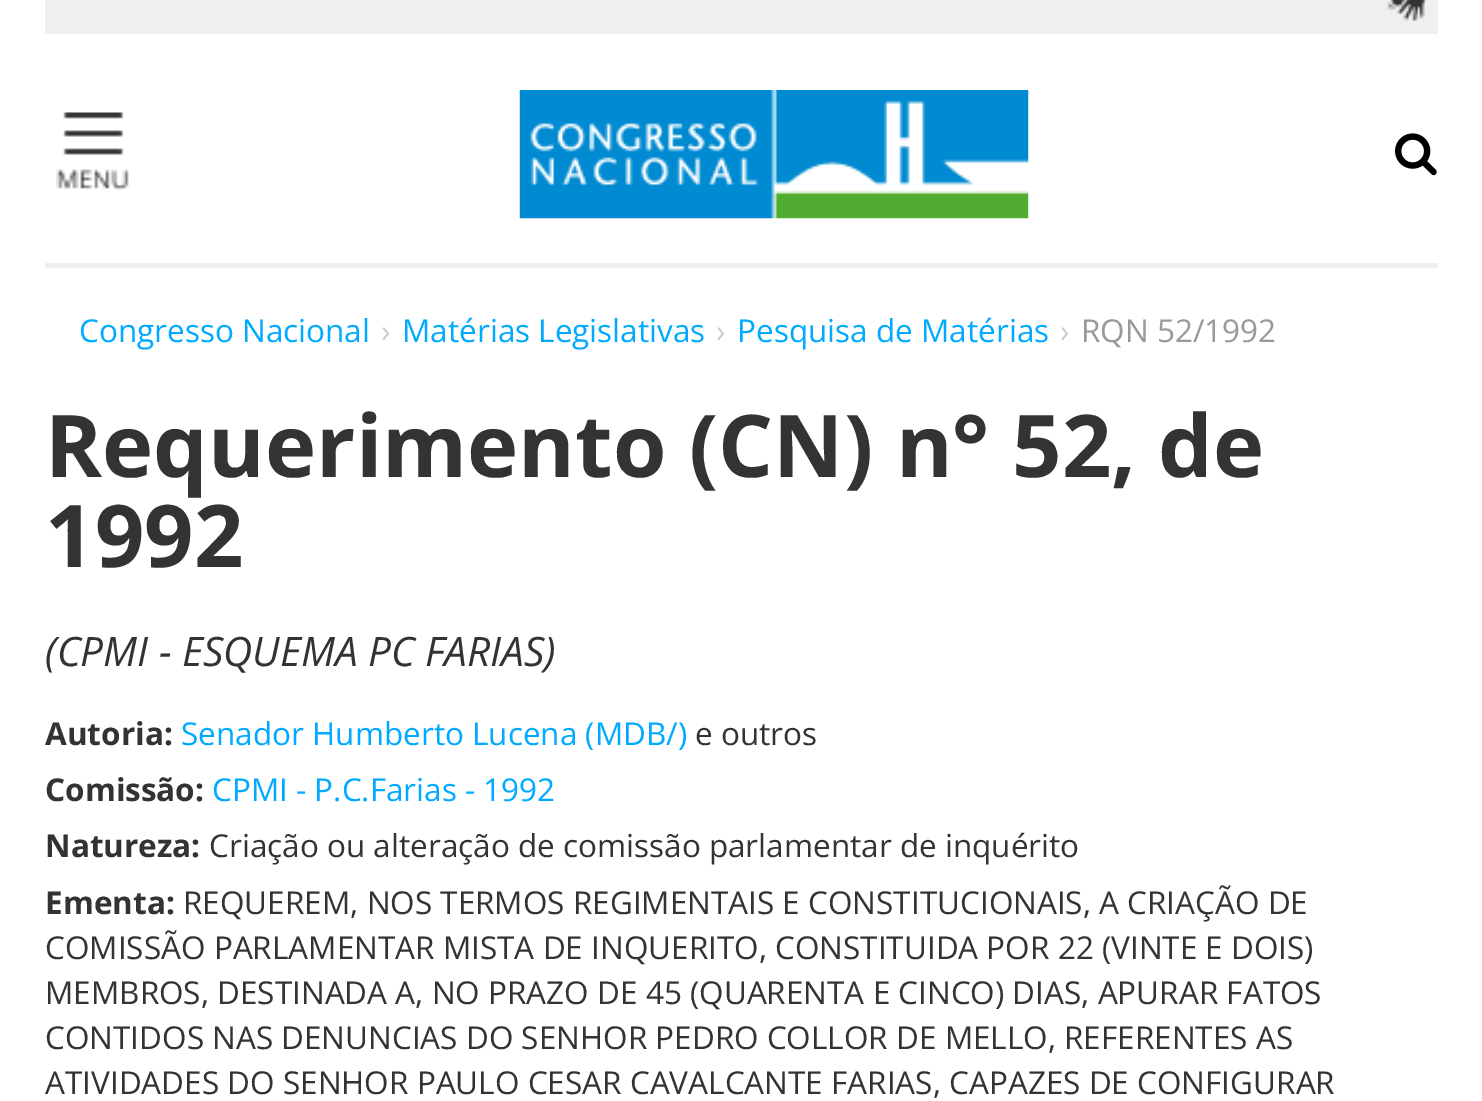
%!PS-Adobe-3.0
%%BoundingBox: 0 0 1482 1101
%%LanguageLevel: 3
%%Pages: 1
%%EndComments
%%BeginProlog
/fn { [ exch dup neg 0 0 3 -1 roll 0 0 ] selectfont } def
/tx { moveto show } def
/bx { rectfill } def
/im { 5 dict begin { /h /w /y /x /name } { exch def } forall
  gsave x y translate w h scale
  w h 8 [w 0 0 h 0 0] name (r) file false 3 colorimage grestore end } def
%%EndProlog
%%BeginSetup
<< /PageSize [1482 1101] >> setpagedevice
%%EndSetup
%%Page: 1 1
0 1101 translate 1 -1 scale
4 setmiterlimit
1 setgray
0 0 1482 1101 bx
0.937 setgray
45 0 1393 34 bx
(image0.raw) 1386 0 41 21 im
45 263 1393 5 bx
(image1.raw) 56 112 73 79 im
(image2.raw) 519 90 510 129 im
(image3.raw) 1395 133 42 43 im
/OpenSans-Regular 31.5 fn
0 0.667 1 setrgbcolor
(Congresso Nacional) 79 342 tx
0.8 setgray
(›) 381 342 tx
0 0.667 1 setrgbcolor
(Matérias Legislativas) 402 342 tx
0.8 setgray
(›) 716 342 tx
0 0.667 1 setrgbcolor
(Pesquisa de Matérias) 737 342 tx
0.8 setgray
(›) 1060 342 tx
0.6 setgray
(RQN 52/1992) 1081 342 tx
/OpenSans-Bold 86.6 fn
0.2 setgray
(Requerimento \(CN\) n° 52, de) 45 477 tx
(1992) 45 567 tx
/OpenSans-Italic 40.5 fn
(\(CPMI - ESQUEMA PC FARIAS\)) 45 666 tx
/OpenSans-Bold 31.5 fn
(Autoria:) 45 745 tx
/OpenSans-Regular 31.5 fn
0 0.667 1 setrgbcolor
(Senador Humberto Lucena \(MDB/\)) 181 745 tx
0.2 setgray
(e outros) 695 745 tx
/OpenSans-Bold 31.5 fn
(Comissão:) 45 801 tx
/OpenSans-Regular 31.5 fn
0 0.667 1 setrgbcolor
(CPMI - P.C.Farias - 1992) 212 801 tx
/OpenSans-Bold 31.5 fn
0.2 setgray
(Natureza:) 45 857 tx
/OpenSans-Regular 31.5 fn
(Criação ou alteração de comissão parlamentar de inquérito) 209 857 tx
/OpenSans-Bold 31.5 fn
(Ementa:) 45 914 tx
/OpenSans-Regular 31.5 fn
(REQUEREM, NOS TERMOS REGIMENTAIS E CONSTITUCIONAIS, A CRIAÇÃO DE) 183 914 tx
(COMISSÃO PARLAMENTAR MISTA DE INQUERITO, CONSTITUIDA POR 22 \(VINTE E DOIS\)) 45 959 tx
(MEMBROS, DESTINADA A, NO PRAZO DE 45 \(QUARENTA E CINCO\) DIAS, APURAR FATOS) 45 1004 tx
(CONTIDOS NAS DENUNCIAS DO SENHOR PEDRO COLLOR DE MELLO, REFERENTES AS) 45 1049 tx
(ATIVIDADES DO SENHOR PAULO CESAR CAVALCANTE FARIAS, CAPAZES DE CONFIGURAR) 45 1094 tx
showpage
%%EOF
